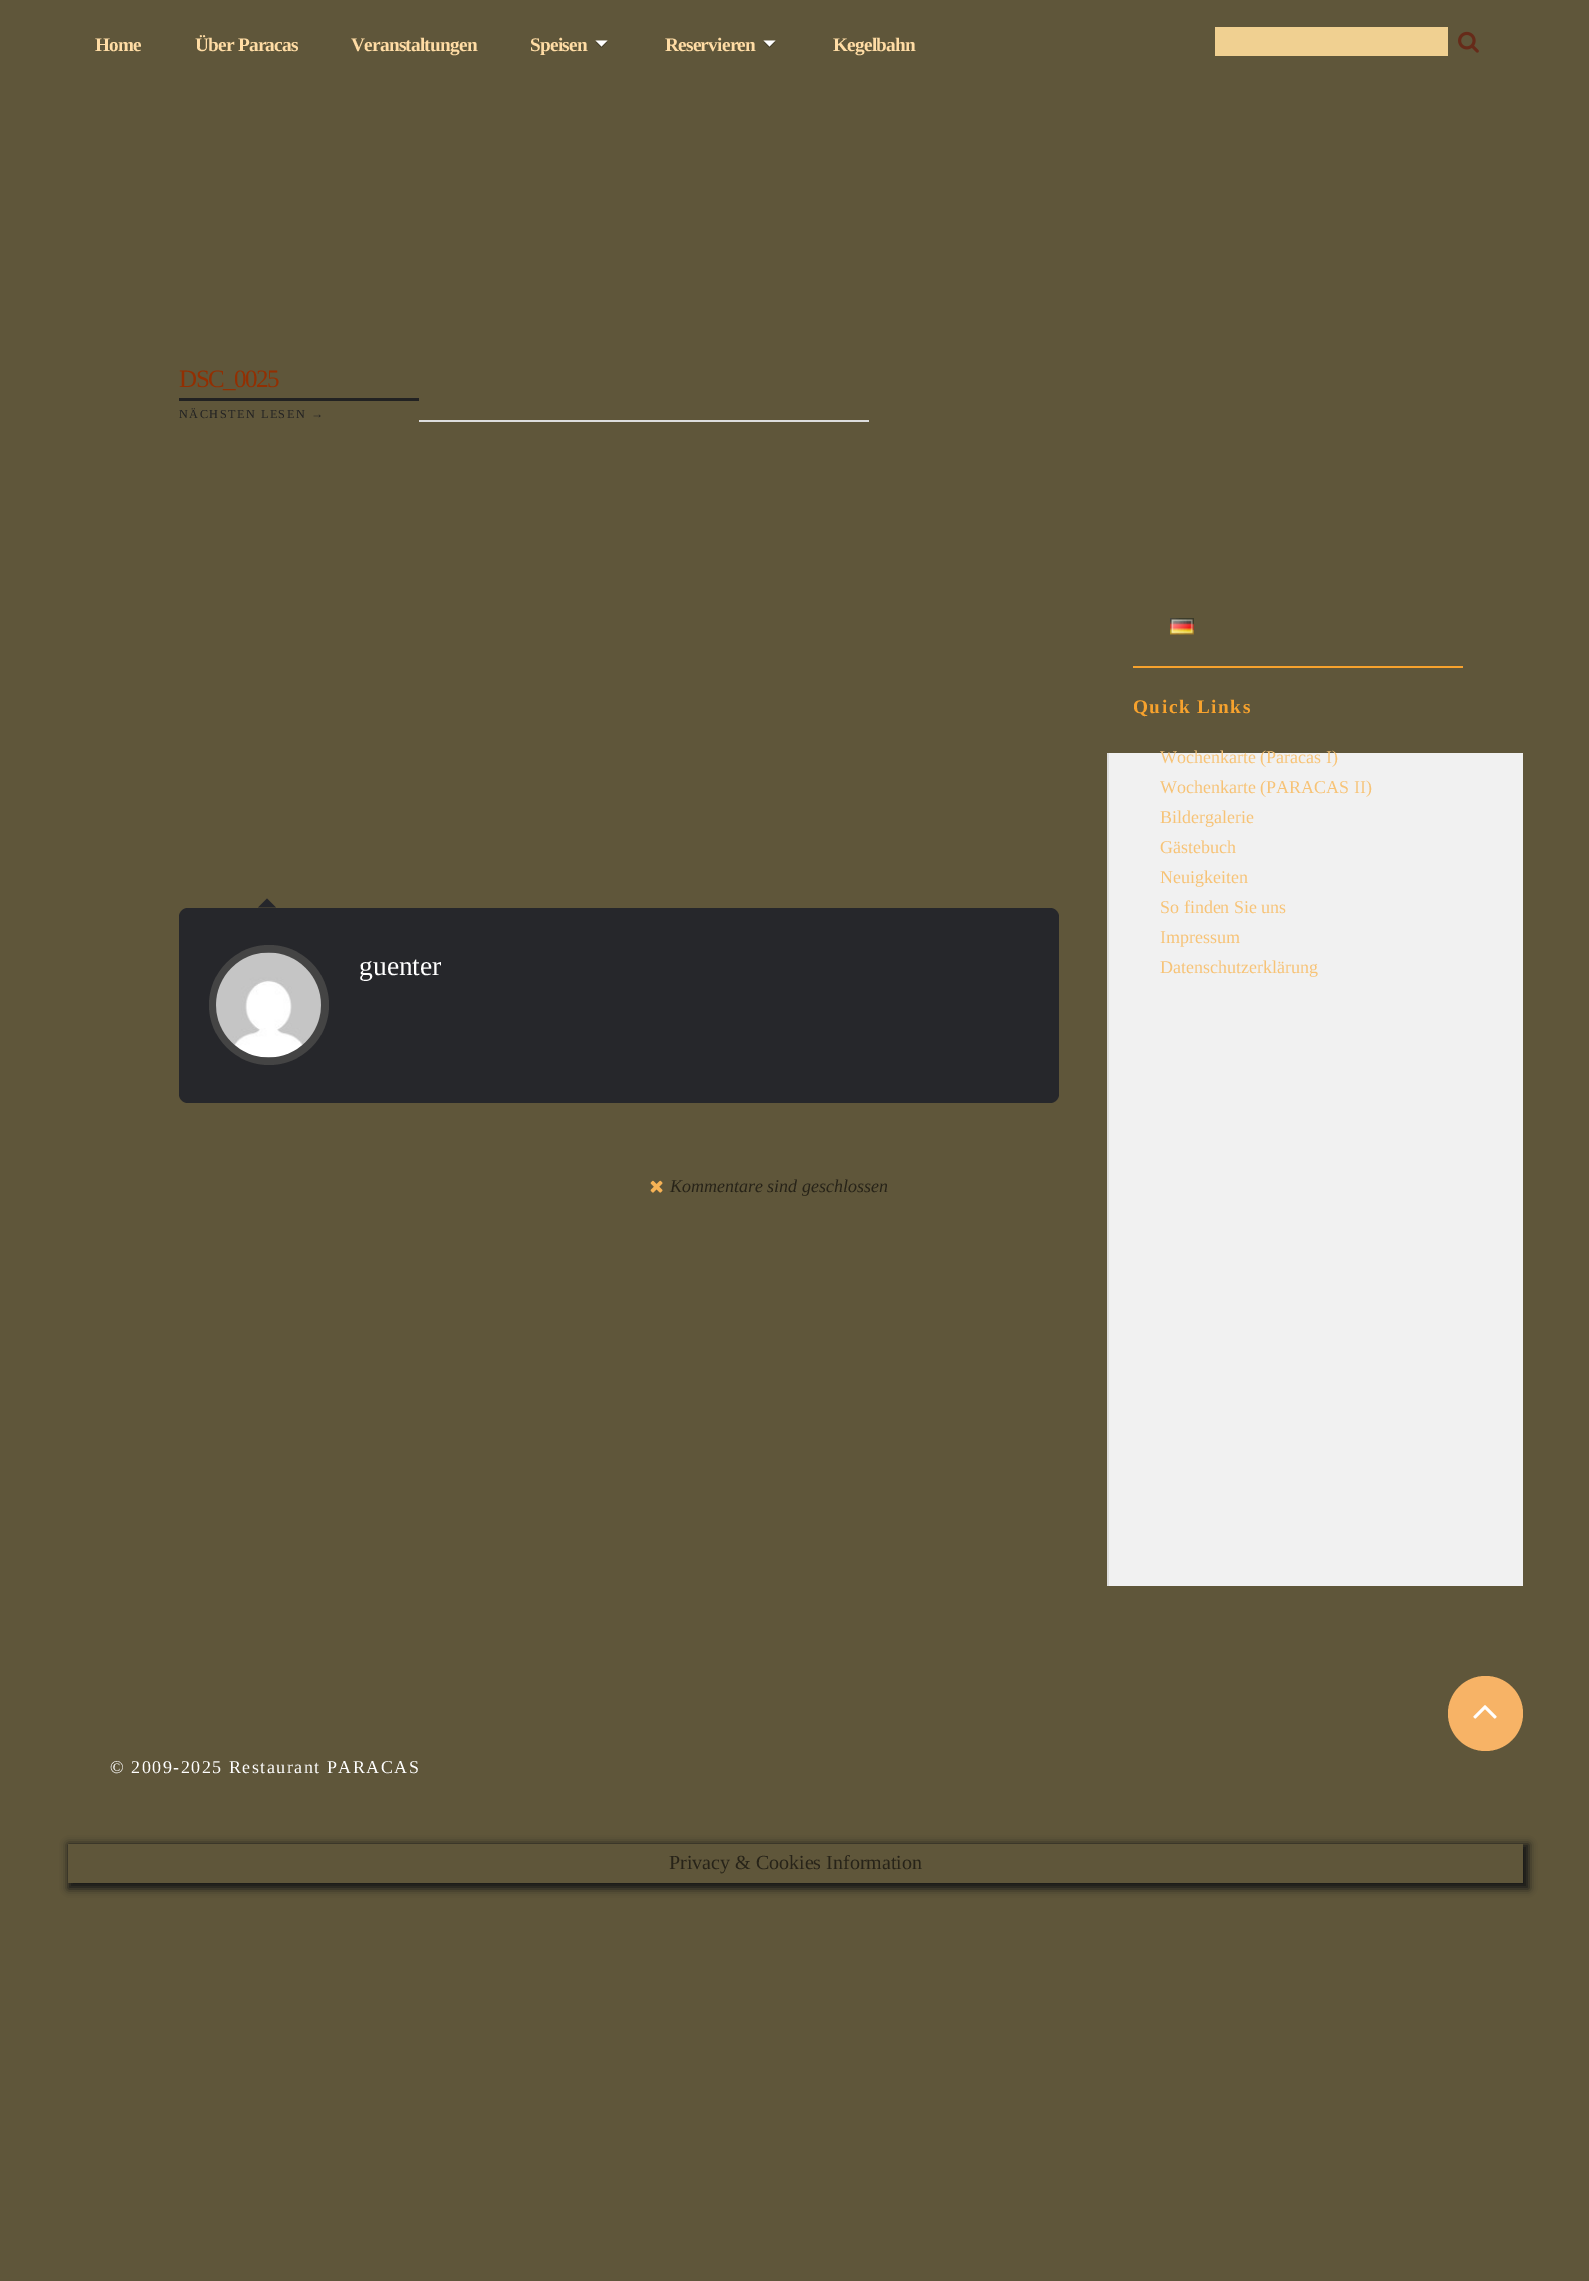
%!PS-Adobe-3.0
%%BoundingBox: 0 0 1589 2281
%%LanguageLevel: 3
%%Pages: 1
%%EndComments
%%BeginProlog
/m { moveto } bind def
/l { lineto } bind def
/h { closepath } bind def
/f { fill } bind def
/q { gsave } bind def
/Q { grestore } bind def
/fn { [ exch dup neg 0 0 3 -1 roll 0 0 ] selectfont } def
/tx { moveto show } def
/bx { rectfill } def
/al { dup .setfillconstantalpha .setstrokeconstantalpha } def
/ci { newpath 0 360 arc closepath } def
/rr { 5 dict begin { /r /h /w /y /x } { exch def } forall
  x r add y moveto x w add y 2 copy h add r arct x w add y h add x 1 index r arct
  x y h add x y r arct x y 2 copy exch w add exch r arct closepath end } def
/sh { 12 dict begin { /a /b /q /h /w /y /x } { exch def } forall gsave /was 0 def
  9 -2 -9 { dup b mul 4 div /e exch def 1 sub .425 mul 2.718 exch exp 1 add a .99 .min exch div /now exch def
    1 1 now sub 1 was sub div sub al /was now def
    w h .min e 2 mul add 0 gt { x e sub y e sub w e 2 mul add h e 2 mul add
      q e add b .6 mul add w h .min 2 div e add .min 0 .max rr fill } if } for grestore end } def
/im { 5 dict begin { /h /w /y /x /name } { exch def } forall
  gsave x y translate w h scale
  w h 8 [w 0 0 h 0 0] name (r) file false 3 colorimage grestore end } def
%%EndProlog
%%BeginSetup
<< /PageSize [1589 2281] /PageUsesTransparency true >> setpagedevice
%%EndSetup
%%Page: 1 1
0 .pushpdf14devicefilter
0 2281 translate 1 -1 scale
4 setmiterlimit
0.373 0.337 0.227 setrgbcolor
0 0 1589 2281 bx
/LiberationSerif-Bold 19.25 fn
1 0.863 0.643 setrgbcolor
95 51 m -0.75 0 (Home) ashow
195 51 m -0.75 0 (Über Paracas) ashow
351 51 m -0.75 0 (Veranstaltungen) ashow
530 51 m -0.75 0 (Speisen) ashow
0.278 0.255 0.173 setrgbcolor
595.5 42 m 607.5 42 l 601.5 48 l h f
1 setgray
595.5 40.5 m 607.5 40.5 l 601.5 46.5 l h f
1 0.863 0.643 setrgbcolor
665 51 m -0.75 0 (Reservieren) ashow
0.278 0.255 0.173 setrgbcolor
763.5 42 m 775.5 42 l 769.5 48 l h f
1 setgray
763.5 40.5 m 775.5 40.5 l 769.5 46.5 l h f
1 0.863 0.643 setrgbcolor
833 51 m -0.75 0 (Kegelbahn) ashow
0.941 0.816 0.569 setrgbcolor
1215 27 233 29 bx
(image0.raw) 1458 31 21 22 im
/LiberationSerif-Regular 25 fn
0.573 0.184 0.008 setrgbcolor
179 387 m -1.5 0 (DSC_0025) ashow
0.133 setgray
179 398 240 3 bx
/LiberationSerif-Regular 12.2 fn
179 418 m 1.5 0 (NÄCHSTEN LESEN →) ashow
0.867 setgray
419 420 450 2 bx
0.149 0.153 0.169 setrgbcolor
179 908 880 195 9 rr f
0.145 0.149 0.169 setrgbcolor
276 907.5 m 258 907.5 l 267 898.5 l h f
0.267 setgray
269 1005 60 ci f
(image1.raw) 216 952 105 106 im
/LiberationSerif-Regular 27.5 fn
1 setgray
(guenter) 359 975 tx
(image2.raw) 650 1180 13 13 im
/LiberationSerif-Italic 18 fn
0.153 0.137 0.094 setrgbcolor
(Kommentare sind geschlossen) 670 1192 tx
(image3.raw) 1170 618 24 17 im
0.969 0.635 0.176 setrgbcolor
1133 666 330 2 bx
/LiberationSerif-Bold 19.25 fn
1133 713 m 1.5 0 (Quick Links) ashow
0.945 setgray
1109 753 414 833 bx
/LiberationSerif-Regular 18 fn
0.969 0.765 0.463 setrgbcolor
(Wochenkarte \(Paracas I\)) 1160 763 tx
(Wochenkarte \(PARACAS II\)) 1160 793 tx
(Bildergalerie) 1160 823 tx
(Gästebuch) 1160 853 tx
(Neuigkeiten) 1160 883 tx
(So finden Sie uns) 1160 913 tx
(Impressum) 1160 943 tx
(Datenschutzerklärung) 1160 973 tx
0.867 setgray
1107 753 2 833 bx
0.969 0.702 0.4 setrgbcolor
1485.5 1713.5 37.5 ci f
(image4.raw) 1473 1705 24 14 im
1 setgray
110 1773 m 1.5 0 (© 2009-2025 Restaurant PARACAS) ashow
q
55 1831 m 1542 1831 l 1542 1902 l 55 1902 l h 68 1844 m 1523 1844 l 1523 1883 l 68 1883 l h eoclip newpath
0.086 setgray
68 1844 1461 45 0 4 1 sh
Q
/LiberationSerif-Regular 20 fn
0.153 0.137 0.094 setrgbcolor
(Privacy & Cookies Information) 669 1869 tx
.poppdf14devicefilter showpage
%%EOF
